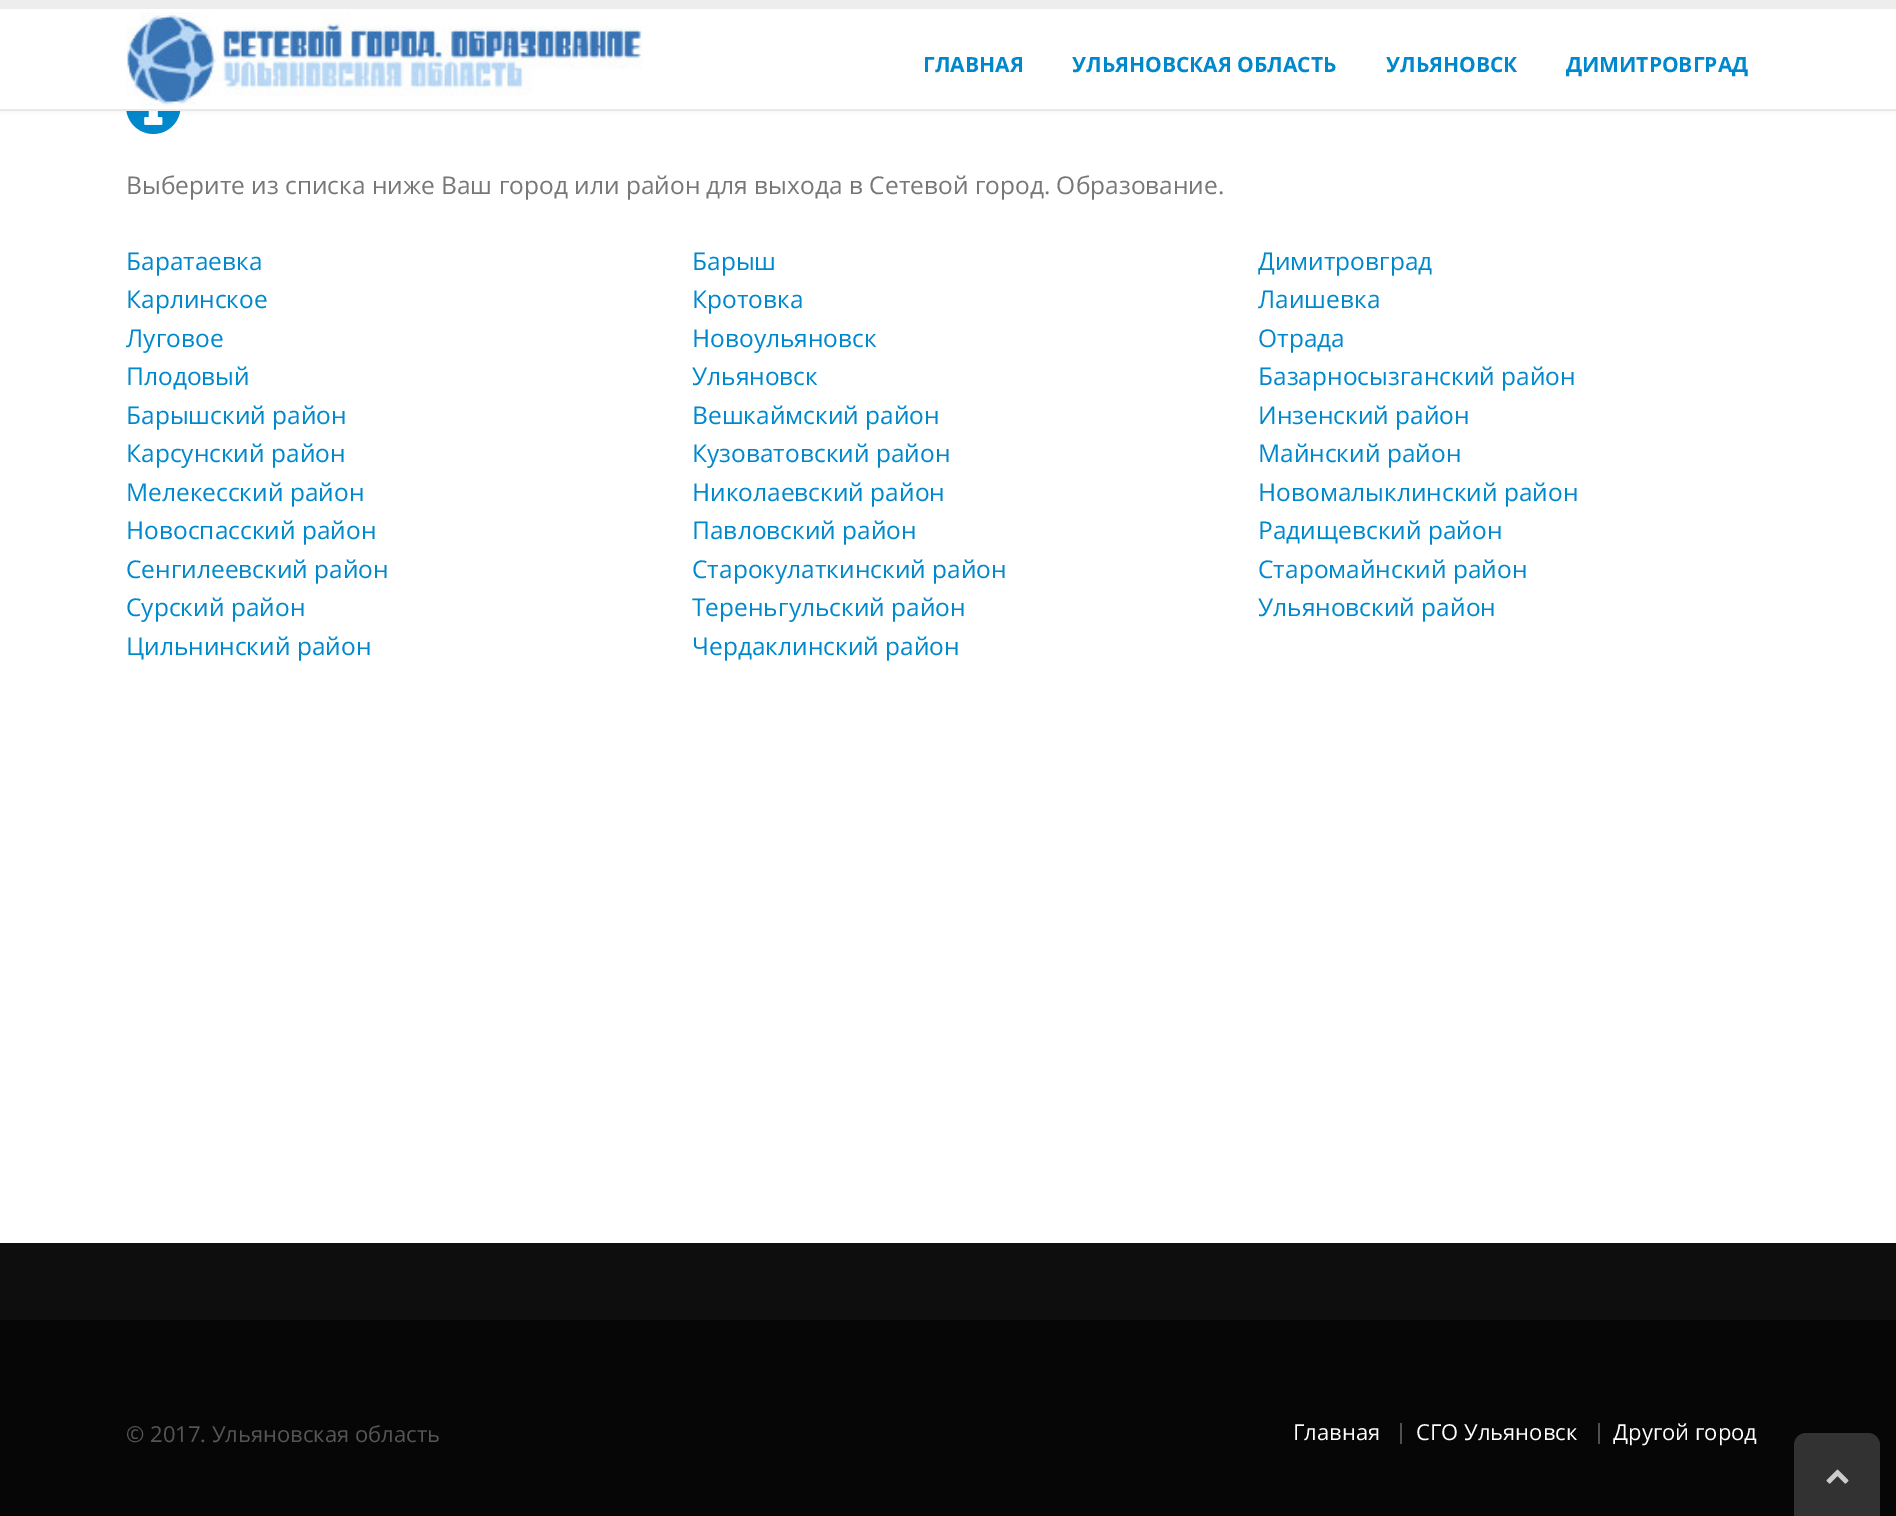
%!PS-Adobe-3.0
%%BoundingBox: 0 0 1896 1516
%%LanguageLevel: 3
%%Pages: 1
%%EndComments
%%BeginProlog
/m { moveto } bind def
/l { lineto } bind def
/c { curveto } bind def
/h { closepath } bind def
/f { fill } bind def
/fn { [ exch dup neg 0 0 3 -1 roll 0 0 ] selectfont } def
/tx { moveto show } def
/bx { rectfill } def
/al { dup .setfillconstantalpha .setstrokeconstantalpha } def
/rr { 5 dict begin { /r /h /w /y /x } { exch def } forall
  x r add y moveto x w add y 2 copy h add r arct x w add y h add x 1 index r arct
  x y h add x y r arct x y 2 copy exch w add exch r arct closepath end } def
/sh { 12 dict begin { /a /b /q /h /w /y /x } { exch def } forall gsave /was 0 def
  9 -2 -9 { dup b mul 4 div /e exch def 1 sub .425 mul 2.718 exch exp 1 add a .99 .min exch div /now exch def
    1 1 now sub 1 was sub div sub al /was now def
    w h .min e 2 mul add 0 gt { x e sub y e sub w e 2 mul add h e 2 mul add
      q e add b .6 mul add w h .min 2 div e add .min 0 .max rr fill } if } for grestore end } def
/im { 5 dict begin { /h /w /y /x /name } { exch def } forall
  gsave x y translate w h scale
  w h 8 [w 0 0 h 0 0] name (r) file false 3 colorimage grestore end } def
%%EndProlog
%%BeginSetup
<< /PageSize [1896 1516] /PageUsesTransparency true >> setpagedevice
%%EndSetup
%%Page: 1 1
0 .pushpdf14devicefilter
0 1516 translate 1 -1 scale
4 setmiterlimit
1 setgray
0 0 1896 1516 bx
(image1.raw) 126 111 55 24 im
0 setgray
0 0 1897 110 0 2.5 0.1 sh
1 setgray
0 9 1896 100 bx
0.929 setgray
0 0 1896 9 bx
0.914 setgray
0 109 1896 2 bx
(image0.raw) 126 12 517 95 im
/OpenSans-Bold 21 fn
0 0.533 0.8 setrgbcolor
(ГЛАВНАЯ) 923 72 tx
(УЛЬЯНОВСКАЯ ОБЛАСТЬ) 1072 72 tx
(УЛЬЯНОВСК) 1386 72 tx
(ДИМИТРОВГРАД) 1566 72 tx
/OpenSans-Regular 24.5 fn
0.467 setgray
(Выберите из списка ниже Ваш город или район для выхода в Сетевой город. Образование.) 126 194 tx
0 0.533 0.8 setrgbcolor
(Баратаевка) 126 270 tx
(Барыш) 692 270 tx
(Димитровград) 1258 270 tx
(Карлинское) 126 308 tx
(Кротовка) 692 308 tx
(Лаишевка) 1258 308 tx
(Луговое) 126 347 tx
(Новоульяновск) 692 347 tx
(Отрада) 1258 347 tx
(Плодовый) 126 385 tx
(Ульяновск) 692 385 tx
(Базарносызганский район) 1258 385 tx
(Барышский район) 126 424 tx
(Вешкаймский район) 692 424 tx
(Инзенский район) 1258 424 tx
(Карсунский район) 126 462 tx
(Кузоватовский район) 692 462 tx
(Майнский район) 1258 462 tx
(Мелекесский район) 126 501 tx
(Николаевский район) 692 501 tx
(Новомалыклинский район) 1258 501 tx
(Новоспасский район) 126 539 tx
(Павловский район) 692 539 tx
(Радищевский район) 1258 539 tx
(Сенгилеевский район) 126 578 tx
(Старокулаткинский район) 692 578 tx
(Старомайнский район) 1258 578 tx
(Сурский район) 126 616 tx
(Тереньгульский район) 692 616 tx
(Ульяновский район) 1258 616 tx
(Цильнинский район) 126 655 tx
(Чердаклинский район) 692 655 tx
0.055 setgray
0 1243 1896 77 bx
0.024 setgray
0 1320 1896 196 bx
/OpenSans-Regular 22 fn
0.333 setgray
(© 2017. Ульяновская область) 126 1442 tx
1 setgray
(Главная) 1293 1440 tx
0.314 setgray
1400 1423 2 21 bx
1 setgray
(СГО Ульяновск) 1416 1440 tx
0.314 setgray
1598 1423 2 21 bx
1 setgray
(Другой город) 1613 1440 tx
0.196 setgray
1806 1433 m 1868 1433 l 1874.5 1433 1880 1438.5 1880 1445 c 1880 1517 l 1794 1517 l 1794 1445 l 1794 1438.5 1799.5 1433 1806 1433 c h f
(image2.raw) 1826 1469 23 15 im
.poppdf14devicefilter showpage
%%EOF
